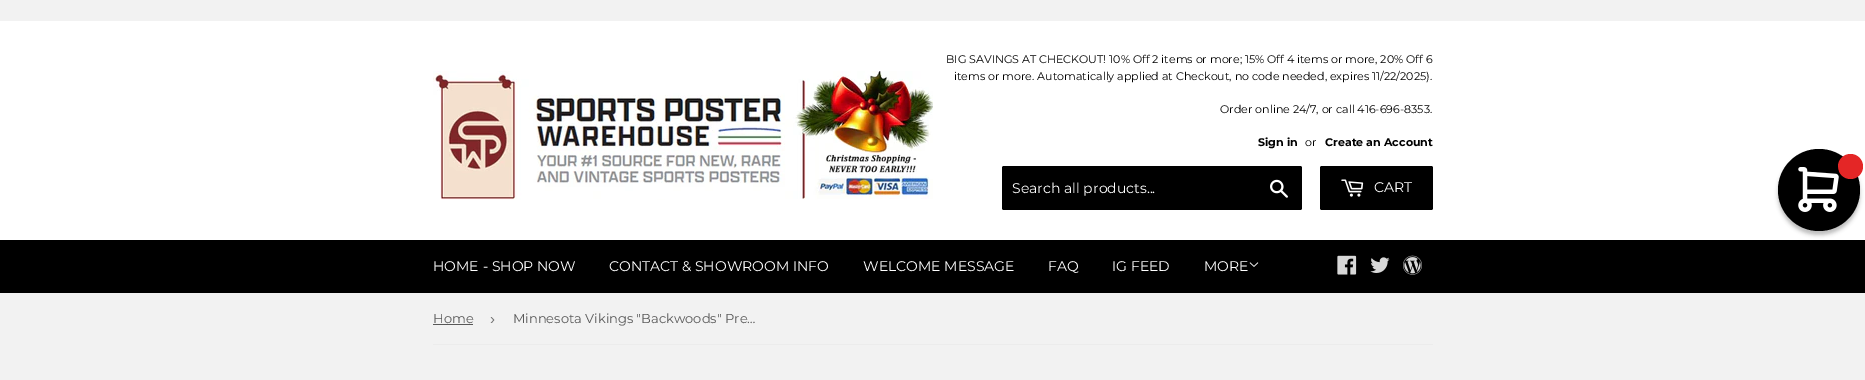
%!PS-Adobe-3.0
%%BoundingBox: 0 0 1865 380
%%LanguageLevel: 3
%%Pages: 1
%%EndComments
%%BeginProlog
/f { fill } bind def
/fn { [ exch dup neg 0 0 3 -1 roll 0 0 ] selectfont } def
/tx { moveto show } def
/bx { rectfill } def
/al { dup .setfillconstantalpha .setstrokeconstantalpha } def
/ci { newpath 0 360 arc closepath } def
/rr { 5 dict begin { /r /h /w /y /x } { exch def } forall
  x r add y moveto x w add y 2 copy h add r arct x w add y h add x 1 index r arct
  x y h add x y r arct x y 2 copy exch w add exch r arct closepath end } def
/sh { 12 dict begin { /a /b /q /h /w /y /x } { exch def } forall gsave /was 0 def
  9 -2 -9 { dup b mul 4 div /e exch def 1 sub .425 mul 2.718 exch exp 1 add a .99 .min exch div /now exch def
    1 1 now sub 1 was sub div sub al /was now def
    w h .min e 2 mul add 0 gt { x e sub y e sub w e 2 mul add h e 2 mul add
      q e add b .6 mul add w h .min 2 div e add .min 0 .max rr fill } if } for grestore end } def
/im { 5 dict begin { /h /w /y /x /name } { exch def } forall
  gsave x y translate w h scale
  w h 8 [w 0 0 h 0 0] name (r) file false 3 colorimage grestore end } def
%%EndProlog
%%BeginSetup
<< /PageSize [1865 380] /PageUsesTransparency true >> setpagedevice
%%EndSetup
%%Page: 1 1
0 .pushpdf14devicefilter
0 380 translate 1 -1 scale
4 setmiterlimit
0.949 setgray
0 0 1865 380 bx
1 setgray
0 21 1865 219 bx
(image0.raw) 433 71 500 129 im
/Montserrat-Regular 11.05 fn
0 setgray
(BIG SAVINGS AT CHECKOUT! 10% Off 2 items or more; 15% Off 4 items or more, 20% Off 6) 946 63 tx
(items or more. Automatically applied at Checkout, no code needed, expires 11/22/2025\).) 954 80 tx
(Order online 24/7, or call 416-696-8353.) 1220 113 tx
/Montserrat-Bold 11.05 fn
(Sign in) 1258 146 tx
/Montserrat-Regular 11.05 fn
(or) 1305 146 tx
/Montserrat-Bold 11.05 fn
(Create an Account) 1325 146 tx
1002 166 300 44 2 rr f
/Montserrat-Regular 14 fn
1 setgray
(Search all products...) 1012 193 tx
(image1.raw) 1270 179 18 19 im
0 setgray
1320 166 113 44 2 rr f
(image2.raw) 1341 179 23 18 im
1 setgray
(CART) 1374 192 tx
0 setgray
0 240 1865 53 bx
1 setgray
(HOME - SHOP NOW) 433 271 tx
(CONTACT & SHOWROOM INFO) 609 271 tx
(WELCOME MESSAGE) 863 271 tx
(FAQ) 1048 271 tx
(IG FEED) 1112 271 tx
(MORE) 1204 271 tx
(image3.raw) 1249 262 10 5 im
(image4.raw) 1337 255 20 20 im
(image5.raw) 1370 257 20 16 im
(image6.raw) 1403 255 19 20 im
0 setgray
1778 153 82 82 41 2 0.25 sh
1819 190 41 ci f
0.894 0.149 0.149 setrgbcolor
1850.5 166.5 12.5 ci f
(image7.raw) 1798 167 41 45 im
0.925 setgray
433 344 1000 1 bx
/Montserrat-Regular 13 fn
0.345 setgray
(Home) 433 323 tx
433 324 40 1 bx
/LiberationSans-Regular 15 fn
0.463 setgray
(›) 490 324 tx
/Montserrat-Regular 13 fn
0.345 setgray
(Minnesota Vikings "Backwoods" Pre…) 513 323 tx
.poppdf14devicefilter showpage
%%EOF
